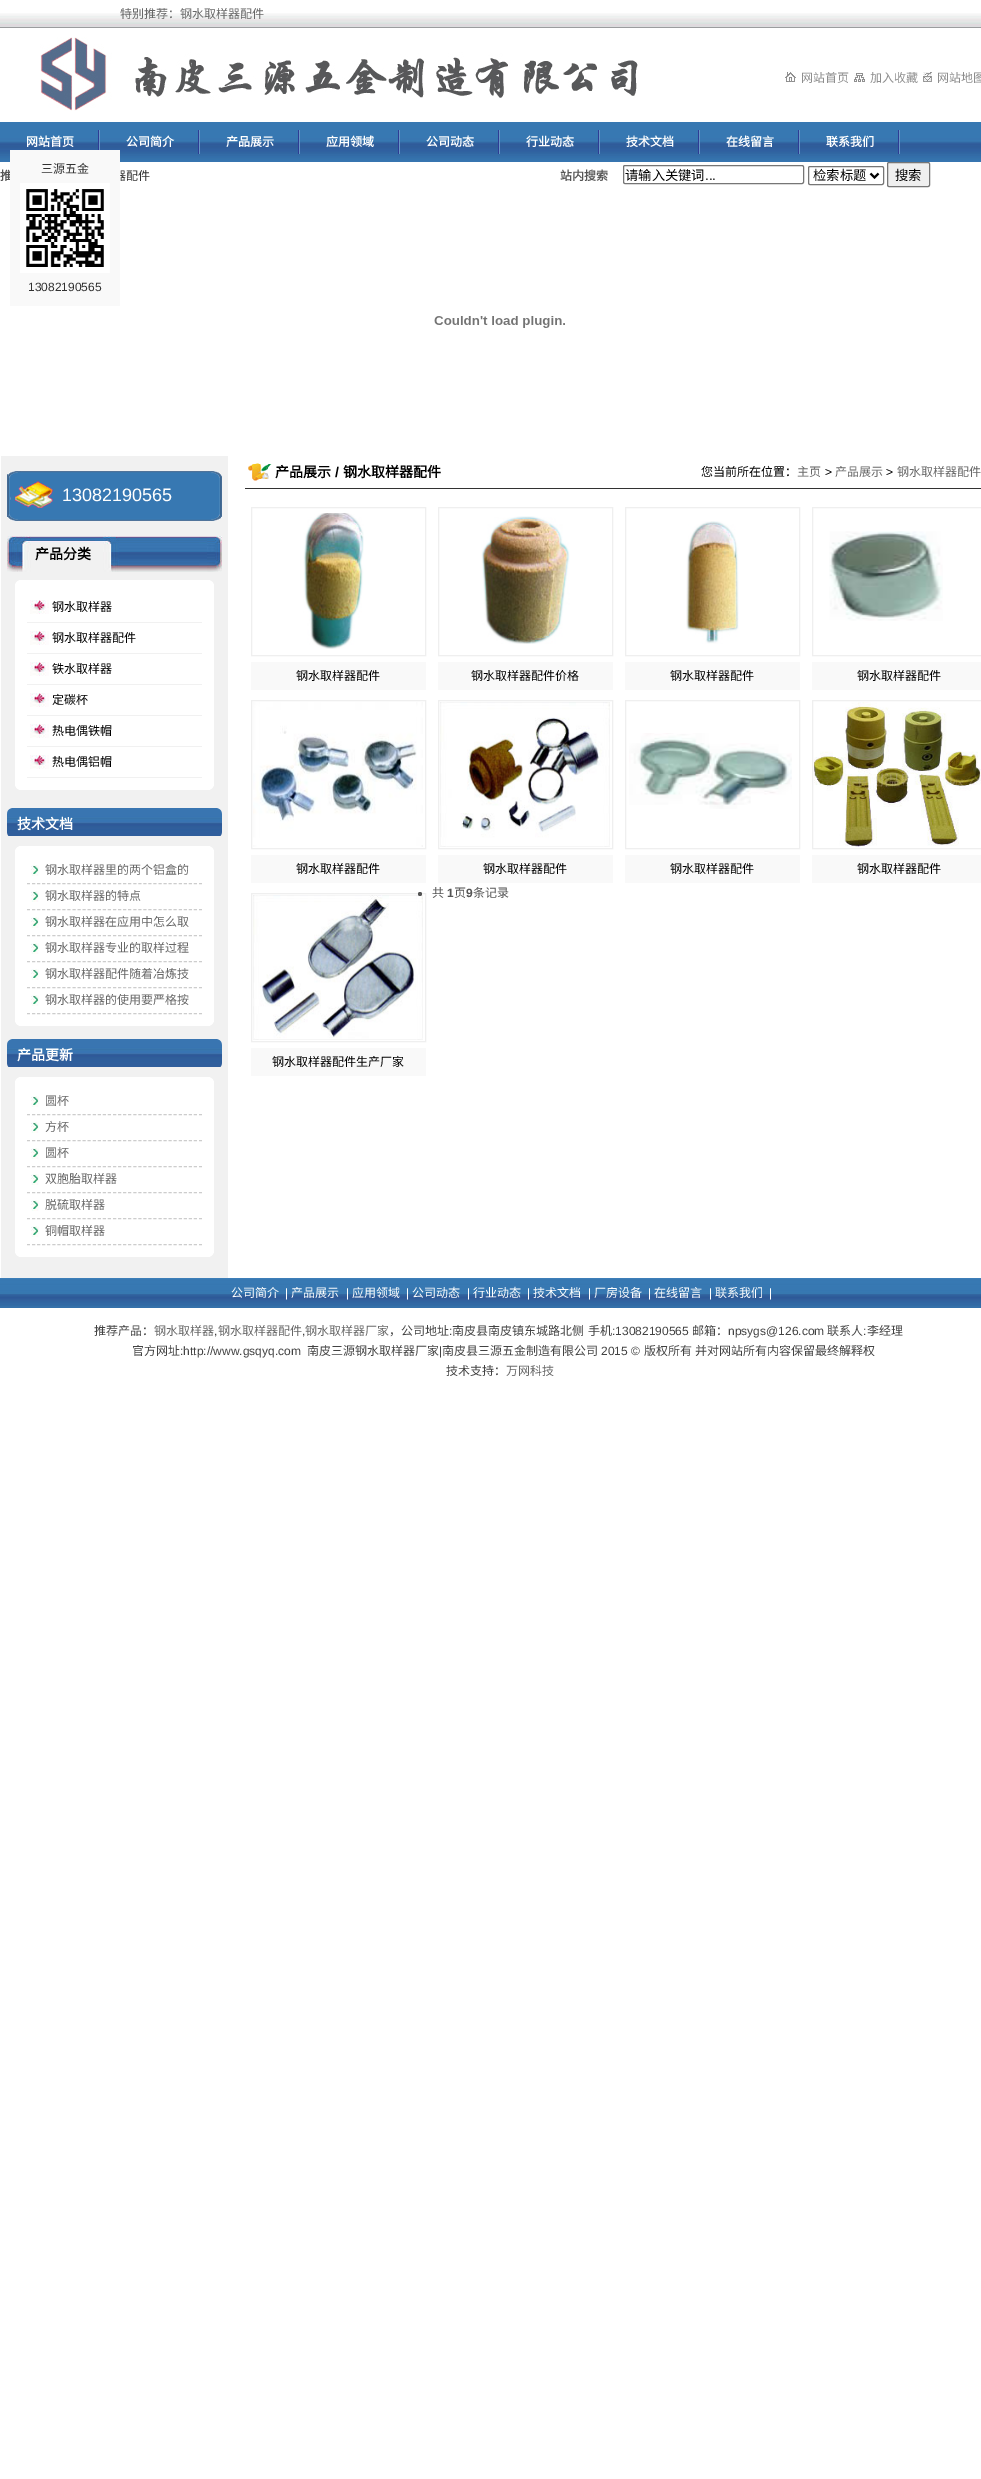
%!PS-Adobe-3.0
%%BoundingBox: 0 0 981 2479
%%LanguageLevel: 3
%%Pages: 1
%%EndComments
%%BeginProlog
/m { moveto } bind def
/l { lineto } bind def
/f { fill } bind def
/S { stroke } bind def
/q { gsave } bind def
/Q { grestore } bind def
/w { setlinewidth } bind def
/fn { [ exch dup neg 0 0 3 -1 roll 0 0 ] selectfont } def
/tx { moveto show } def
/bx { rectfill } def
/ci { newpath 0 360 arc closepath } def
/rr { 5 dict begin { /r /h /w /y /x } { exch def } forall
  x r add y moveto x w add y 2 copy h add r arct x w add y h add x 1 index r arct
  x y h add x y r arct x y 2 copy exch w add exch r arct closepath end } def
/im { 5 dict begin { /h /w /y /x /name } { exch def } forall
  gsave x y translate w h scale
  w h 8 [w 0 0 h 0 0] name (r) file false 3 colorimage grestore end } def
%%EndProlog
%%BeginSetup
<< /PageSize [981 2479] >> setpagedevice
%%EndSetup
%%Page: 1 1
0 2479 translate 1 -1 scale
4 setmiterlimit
1 setgray
0 0 981 2479 bx
(image0.raw) 0 13 981 15 im
/NotoSansCJKSC-Regular 12 fn
0.404 setgray
(特别推荐：钢水取样器配件) 120 18 tx
(image1.raw) 40 37 598 74 im
(image2.raw) 785 71 11 11 im
0.557 setgray
(网站首页) 801 82 tx
(image3.raw) 854 73 11 9 im
(加入收藏) 870 82 tx
(image4.raw) 923 72 9 10 im
(网站地图) 937 82 tx
(image5.raw) 0 122 981 40 im
(image6.raw) 98 130 2 20 im
/NotoSansCJKSC-Bold 12 fn
1 setgray
(网站首页) 26 146 tx
(image7.raw) 198 130 2 24 im
(公司简介) 126 146 tx
(image7.raw) 298 130 2 24 im
(产品展示) 226 146 tx
(image7.raw) 398 130 2 24 im
(应用领域) 326 146 tx
(image7.raw) 498 130 2 24 im
(公司动态) 426 146 tx
(image7.raw) 598 130 2 24 im
(行业动态) 526 146 tx
(image7.raw) 698 130 2 24 im
(技术文档) 626 146 tx
(image7.raw) 798 130 2 24 im
(在线留言) 726 146 tx
(image7.raw) 898 130 2 24 im
(联系我们) 826 146 tx
0.333 setgray
(推) 0 180 tx
/NotoSansCJKSC-Regular 12 fn
0.196 setgray
(器配件) 114 180 tx
0.976 setgray
10 150 110 156 bx
0.196 setgray
(三源五金) 41 173 tx
(image8.raw) 20 183 90 90 im
/LiberationSans-Regular 12 fn
(13082190565) 28 291 tx
/NotoSansCJKSC-Bold 12 fn
0.333 setgray
(站内搜索) 560 180 tx
0.463 setgray
623.5 165.5 180 18 1.5 rr S
/NotoSansCJKSC-Regular 13.25 fn
0 setgray
(请输入关键词) 625 180 tx
/LiberationSans-Regular 13.25 fn
(...) 705 180 tx
0.463 setgray
808.5 166.5 75 18 1.5 rr S
0 setgray
2 w
870.5 173.5 m 874.5 177.5 l 878.5 173.5 l S
/NotoSansCJKSC-Regular 13.25 fn
(检索标题) 813 180 tx
0.937 setgray
887.5 162.5 42 24 1.5 rr q f Q
0.463 setgray
1 w
S
0 setgray
(搜索) 895 180 tx
(image9.raw) 434 316 131 12 im
0.945 setgray
1 456 227 822 bx
(image10.raw) 7 471 215 50 im
/LiberationSans-Regular 18 fn
1 setgray
(13082190565) 62 501 tx
(image11.raw) 7 536 215 36 im
/NotoSansCJKSC-Bold 14 fn
0 setgray
(产品分类) 35 559 tx
1 setgray
15 580 199 210 bx
(image12.raw) 15 580 4 4 im
(image13.raw) 210 580 4 4 im
(image14.raw) 30 600 19 14 im
0.945 setgray
27 622 175 1 bx
/NotoSansCJKSC-Regular 12 fn
0 setgray
(钢水取样器) 52 611 tx
(image14.raw) 30 631 19 14 im
0.945 setgray
27 653 175 1 bx
0 setgray
(钢水取样器配件) 52 642 tx
(image14.raw) 30 662 19 14 im
0.945 setgray
27 684 175 1 bx
0 setgray
(铁水取样器) 52 673 tx
(image14.raw) 30 693 19 14 im
0.945 setgray
27 715 175 1 bx
0 setgray
(定碳杯) 52 704 tx
(image14.raw) 30 724 19 14 im
0.945 setgray
27 746 175 1 bx
0 setgray
(热电偶铁帽) 52 735 tx
(image14.raw) 30 755 19 14 im
0.945 setgray
27 777 175 1 bx
0 setgray
(热电偶铝帽) 52 766 tx
(image15.raw) 15 786 4 4 im
(image16.raw) 210 786 4 4 im
(image17.raw) 7 808 215 28 im
(image18.raw) 7 808 5 6 im
(image19.raw) 217 808 5 6 im
/NotoSansCJKSC-Bold 14 fn
1 setgray
(技术文档) 17 829 tx
(image20.raw) 7 832 2 4 im
(image21.raw) 220 832 2 4 im
15 846 199 180 bx
(image12.raw) 15 846 4 4 im
(image13.raw) 210 846 4 4 im
(image22.raw) 31 865 8 11 im
0.804 setgray
[3 2.06] 0 setdash
27 883.5 m 202 883.5 l S
/NotoSansCJKSC-Regular 12 fn
0.404 setgray
(钢水取样器里的两个铝盒的) 45 874 tx
(image22.raw) 31 891 8 11 im
0.804 setgray
27 909.5 m 202 909.5 l S
0.404 setgray
(钢水取样器的特点) 45 900 tx
(image22.raw) 31 917 8 11 im
0.804 setgray
27 935.5 m 202 935.5 l S
0.404 setgray
(钢水取样器在应用中怎么取) 45 926 tx
(image22.raw) 31 943 8 11 im
0.804 setgray
27 961.5 m 202 961.5 l S
0.404 setgray
(钢水取样器专业的取样过程) 45 952 tx
(image22.raw) 31 969 8 11 im
0.804 setgray
27 987.5 m 202 987.5 l S
0.404 setgray
(钢水取样器配件随着冶炼技) 45 978 tx
(image22.raw) 31 995 8 11 im
0.804 setgray
27 1013.5 m 202 1013.5 l S
0.404 setgray
(钢水取样器的使用要严格按) 45 1004 tx
(image15.raw) 15 1022 4 4 im
(image16.raw) 210 1022 4 4 im
(image17.raw) 7 1039 215 28 im
(image18.raw) 7 1039 5 6 im
(image19.raw) 217 1039 5 6 im
/NotoSansCJKSC-Bold 14 fn
1 setgray
(产品更新) 17 1060 tx
(image20.raw) 7 1063 2 4 im
(image21.raw) 220 1063 2 4 im
15 1077 199 180 bx
(image12.raw) 15 1077 4 4 im
(image13.raw) 210 1077 4 4 im
(image22.raw) 31 1096 8 11 im
0.804 setgray
27 1114.5 m 202 1114.5 l S
/NotoSansCJKSC-Regular 12 fn
0.404 setgray
(圆杯) 45 1105 tx
(image22.raw) 31 1122 8 11 im
0.804 setgray
27 1140.5 m 202 1140.5 l S
0.404 setgray
(方杯) 45 1131 tx
(image22.raw) 31 1148 8 11 im
0.804 setgray
27 1166.5 m 202 1166.5 l S
0.404 setgray
(圆杯) 45 1157 tx
(image22.raw) 31 1174 8 11 im
0.804 setgray
27 1192.5 m 202 1192.5 l S
0.404 setgray
(双胞胎取样器) 45 1183 tx
(image22.raw) 31 1200 8 11 im
0.804 setgray
27 1218.5 m 202 1218.5 l S
0.404 setgray
(脱硫取样器) 45 1209 tx
(image22.raw) 31 1226 8 11 im
0.804 setgray
27 1244.5 m 202 1244.5 l S
0.404 setgray
(铜帽取样器) 45 1235 tx
(image15.raw) 15 1253 4 4 im
(image16.raw) 210 1253 4 4 im
(image23.raw) 248 463 24 18 im
0.196 setgray
245 488 736 1 bx
/NotoSansCJKSC-Bold 14 fn
0 setgray
(产品展示) 275 477 tx
/LiberationSans-Bold 14 fn
(/) 335 477 tx
/NotoSansCJKSC-Bold 14 fn
(钢水取样器配件) 343 477 tx
/NotoSansCJKSC-Regular 12 fn
(您当前所在位置：) 701 476 tx
0.404 setgray
(主页) 797 476 tx
/LiberationSans-Regular 12 fn
0 setgray
(>) 825 476 tx
/NotoSansCJKSC-Regular 12 fn
0.404 setgray
(产品展示) 835 476 tx
/LiberationSans-Regular 12 fn
0 setgray
(>) 886 476 tx
/NotoSansCJKSC-Regular 12 fn
0.404 setgray
(钢水取样器配件) 897 476 tx
0.937 setgray
[] 0 setdash
251.5 507.5 174 148 rectstroke
(image24.raw) 303 513 61 136 im
0.976 setgray
251 662 175 28 bx
0 setgray
(钢水取样器配件) 296 680 tx
0.937 setgray
438.5 507.5 174 148 rectstroke
(image25.raw) 481 516 89 128 im
0.976 setgray
438 662 175 28 bx
0 setgray
(钢水取样器配件价格) 471 680 tx
0.937 setgray
625.5 507.5 174 148 rectstroke
(image26.raw) 686 521 53 123 im
0.976 setgray
625 662 175 28 bx
0 setgray
(钢水取样器配件) 670 680 tx
0.937 setgray
812.5 507.5 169 148 rectstroke
(image27.raw) 829 531 114 90 im
0.976 setgray
812 662 169 28 bx
0 setgray
(钢水取样器配件) 857 680 tx
0.937 setgray
251.5 700.5 174 148 rectstroke
(image28.raw) 253 702 170 145 im
0.976 setgray
251 855 175 28 bx
0 setgray
(钢水取样器配件) 296 873 tx
0.937 setgray
438.5 700.5 174 148 rectstroke
(image29.raw) 440 702 170 145 im
0.976 setgray
438 855 175 28 bx
0 setgray
(钢水取样器配件) 483 873 tx
0.937 setgray
625.5 700.5 174 148 rectstroke
(image30.raw) 629 733 163 76 im
0.976 setgray
625 855 175 28 bx
0 setgray
(钢水取样器配件) 670 873 tx
0.937 setgray
812.5 700.5 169 148 rectstroke
(image31.raw) 814 702 167 145 im
0.976 setgray
812 855 169 28 bx
0 setgray
(钢水取样器配件) 857 873 tx
0.937 setgray
251.5 893.5 174 148 rectstroke
(image32.raw) 253 895 170 145 im
0.976 setgray
251 1048 175 28 bx
0 setgray
(钢水取样器配件生产厂家) 272 1066 tx
0.333 setgray
420 894 2 ci f
(共) 432 897 tx
/LiberationSans-Bold 12 fn
(1) 447 897 tx
/NotoSansCJKSC-Regular 12 fn
(页) 454 897 tx
/LiberationSans-Bold 12 fn
(9) 466 897 tx
/NotoSansCJKSC-Regular 12 fn
(条记录) 473 897 tx
(image33.raw) 0 1278 981 30 im
1 setgray
(公司简介) 231 1297 tx
/LiberationSans-Regular 12 fn
(|) 285 1297 tx
/NotoSansCJKSC-Regular 12 fn
(产品展示) 291 1297 tx
/LiberationSans-Regular 12 fn
(|) 346 1297 tx
/NotoSansCJKSC-Regular 12 fn
(应用领域) 352 1297 tx
/LiberationSans-Regular 12 fn
(|) 406 1297 tx
/NotoSansCJKSC-Regular 12 fn
(公司动态) 412 1297 tx
/LiberationSans-Regular 12 fn
(|) 467 1297 tx
/NotoSansCJKSC-Regular 12 fn
(行业动态) 473 1297 tx
/LiberationSans-Regular 12 fn
(|) 527 1297 tx
/NotoSansCJKSC-Regular 12 fn
(技术文档) 533 1297 tx
/LiberationSans-Regular 12 fn
(|) 588 1297 tx
/NotoSansCJKSC-Regular 12 fn
(厂房设备) 594 1297 tx
/LiberationSans-Regular 12 fn
(|) 648 1297 tx
/NotoSansCJKSC-Regular 12 fn
(在线留言) 654 1297 tx
/LiberationSans-Regular 12 fn
(|) 709 1297 tx
/NotoSansCJKSC-Regular 12 fn
(联系我们) 715 1297 tx
/LiberationSans-Regular 12 fn
(|) 769 1297 tx
/NotoSansCJKSC-Regular 12 fn
0.263 setgray
(推荐产品：) 94 1335 tx
0.404 setgray
(钢水取样器) 154 1335 tx
/LiberationSans-Regular 12 fn
0.263 setgray
(,) 214 1335 tx
/NotoSansCJKSC-Regular 12 fn
0.404 setgray
(钢水取样器配件) 218 1335 tx
/LiberationSans-Regular 12 fn
0.263 setgray
(,) 302 1335 tx
/NotoSansCJKSC-Regular 12 fn
0.404 setgray
(钢水取样器厂家) 305 1335 tx
0.263 setgray
(，公司地址) 389 1335 tx
/LiberationSans-Regular 12 fn
(:) 449 1335 tx
/NotoSansCJKSC-Regular 12 fn
(南皮县南皮镇东城路北侧) 452 1335 tx
(手机) 588 1335 tx
/LiberationSans-Regular 12 fn
(:13082190565) 612 1335 tx
/NotoSansCJKSC-Regular 12 fn
(邮箱：) 692 1335 tx
/LiberationSans-Regular 12 fn
(npsygs@126.com) 728 1335 tx
/NotoSansCJKSC-Regular 12 fn
(联系人) 827 1335 tx
/LiberationSans-Regular 12 fn
(:) 863 1335 tx
/NotoSansCJKSC-Regular 12 fn
(李经理) 867 1335 tx
(官方网址) 132 1355 tx
/LiberationSans-Regular 12 fn
(:http://www.gsqyq.com) 180 1355 tx
/NotoSansCJKSC-Regular 12 fn
(南皮三源钢水取样器厂家) 307 1355 tx
/LiberationSans-Regular 12 fn
(|) 439 1355 tx
/NotoSansCJKSC-Regular 12 fn
(南皮县三源五金制造有限公司) 442 1355 tx
/LiberationSans-Regular 12 fn
(2015 ©) 601 1355 tx
/NotoSansCJKSC-Regular 12 fn
(版权所有) 644 1355 tx
(并对网站所有内容保留最终解释权) 695 1355 tx
(技术支持：) 446 1375 tx
0.404 setgray
(万网科技) 506 1375 tx
showpage
%%EOF
